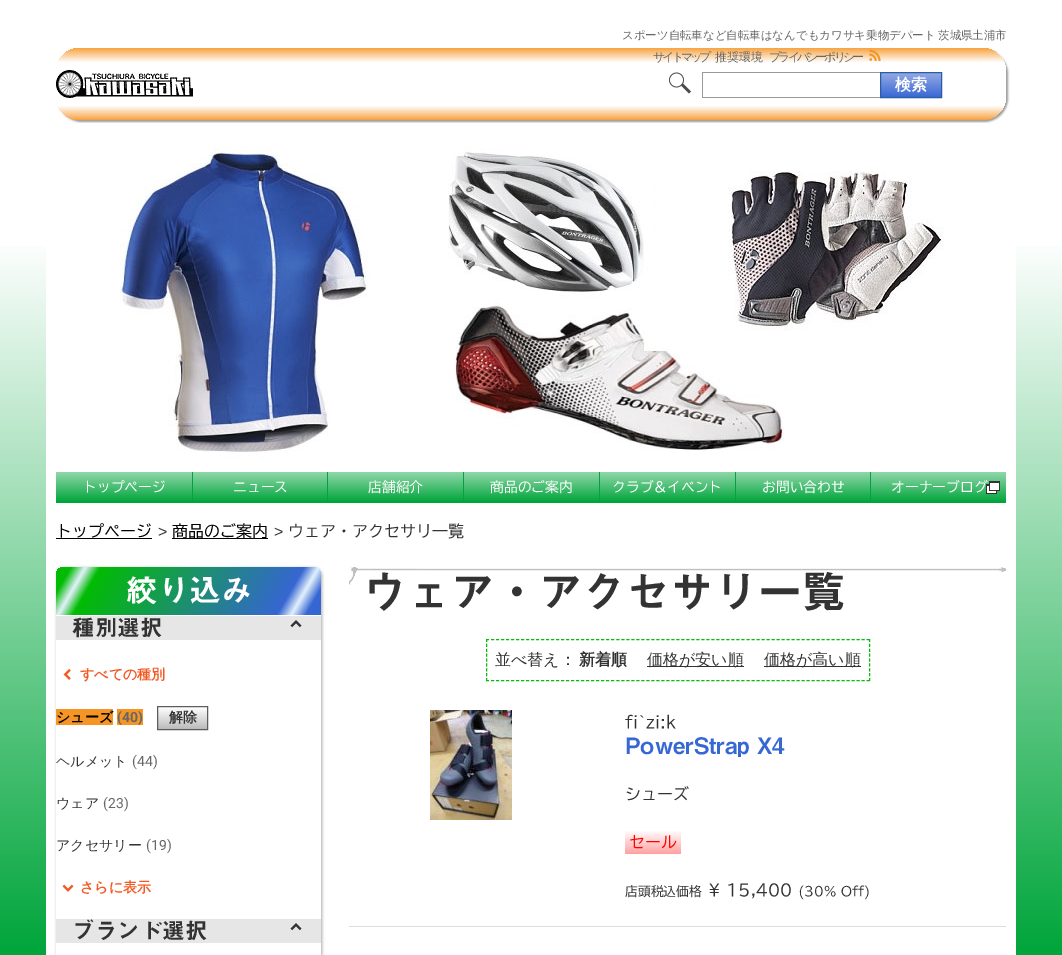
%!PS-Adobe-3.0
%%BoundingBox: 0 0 1062 955
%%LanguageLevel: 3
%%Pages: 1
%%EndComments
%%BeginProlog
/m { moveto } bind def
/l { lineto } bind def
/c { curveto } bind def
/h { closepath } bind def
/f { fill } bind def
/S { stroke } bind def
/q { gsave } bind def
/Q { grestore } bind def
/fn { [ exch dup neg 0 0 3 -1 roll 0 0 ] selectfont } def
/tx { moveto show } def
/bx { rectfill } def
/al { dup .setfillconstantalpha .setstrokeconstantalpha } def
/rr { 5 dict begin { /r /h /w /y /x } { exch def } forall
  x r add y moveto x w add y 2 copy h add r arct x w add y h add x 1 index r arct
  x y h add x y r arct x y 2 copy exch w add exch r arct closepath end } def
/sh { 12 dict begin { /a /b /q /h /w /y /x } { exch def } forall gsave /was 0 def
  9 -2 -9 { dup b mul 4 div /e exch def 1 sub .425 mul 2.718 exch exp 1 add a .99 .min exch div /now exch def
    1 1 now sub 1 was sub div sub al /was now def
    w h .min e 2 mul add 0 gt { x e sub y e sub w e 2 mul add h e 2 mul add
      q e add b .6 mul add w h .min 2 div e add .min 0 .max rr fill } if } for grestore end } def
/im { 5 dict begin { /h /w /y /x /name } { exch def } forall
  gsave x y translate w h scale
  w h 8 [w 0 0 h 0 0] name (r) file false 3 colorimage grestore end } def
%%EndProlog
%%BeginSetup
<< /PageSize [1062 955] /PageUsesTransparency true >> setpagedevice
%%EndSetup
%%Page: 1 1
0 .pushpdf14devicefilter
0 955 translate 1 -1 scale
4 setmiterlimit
1 setgray
0 0 1062 955 bx
q 0 246 m 1062 246 l 1062 955 l 0 955 l h clip newpath
<< /ShadingType 2 /ColorSpace /DeviceRGB /Coords [531 0 531 955] /Extend [true true] /Function << /FunctionType 3 /Domain [0 1] /Functions [<< /FunctionType 2 /Domain [0 1] /C0 [1 1 1] /C1 [1 1 1] /N 1 >> << /FunctionType 2 /Domain [0 1] /C0 [1 1 1] /C1 [0 0.647 0.231] /N 1 >>] /Bounds [0.25] /Encode [0 1 0 1] >> >> shfill Q
46 24 970 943 12 rr f
/WenQuanYiZenHei-Medium 11.45 fn
0.4 setgray
622 39 m -1 0 32 (スポーツ自転車など自転車はなんでもカワサキ乗物デパート 茨城県土浦市) widthshow
0.6 setgray
58 50 950 72 24 1 1 sh
q 56 48 950 72 24 rr clip newpath
<< /ShadingType 2 /ColorSpace /DeviceRGB /Coords [531 48 531 120] /Extend [true true] /Function << /FunctionType 3 /Domain [0 1] /Functions [<< /FunctionType 2 /Domain [0 1] /C0 [0.973 0.635 0.243] /C1 [1 1 1] /N 1 >> << /FunctionType 2 /Domain [0 1] /C0 [1 1 1] /C1 [1 1 1] /N 1 >> << /FunctionType 2 /Domain [0 1] /C0 [1 1 1] /C1 [0.973 0.635 0.243] /N 1 >>] /Bounds [0.2 0.8] /Encode [0 1 0 1 0 1] >> >> shfill Q
(image0.raw) 56 70 137 28 im
/WenQuanYiZenHei-Medium 12 fn
0.4 setgray
653 61 m -3 0 (サイトマップ) ashow
(推奨環境) 715 61 tx
769 61 m -3 0 (プライバシーポリシー) ashow
(image1.raw) 869 49 12 12 im
(image2.raw) 669 72 22 22 im
0.6 setgray
702 72 178 1 bx
702 97 178 1 bx
702 72 1 26 bx
q 881 73 m 941 73 l 941 97 l 881 97 l h clip newpath
<< /ShadingType 2 /ColorSpace /DeviceRGB /Coords [911 73 911 97] /Extend [true true] /Function << /FunctionType 2 /Domain [0 1] /C0 [0.58 0.663 0.89] /C1 [0.227 0.412 0.831] /N 1 >> >> shfill Q
0.165 0.365 0.663 setrgbcolor
880.5 72.5 61 25 rectstroke
/WenQuanYiZenHei-Bold 16 fn
1 setgray
(検索) 895 90 tx
(image3.raw) 78 123 910 336 im
q 56 472 m 192 472 l 192 502 l 56 502 l h clip newpath
<< /ShadingType 2 /ColorSpace /DeviceRGB /Coords [124 472 124 502] /Extend [true true] /Function << /FunctionType 2 /Domain [0 1] /C0 [0.569 0.843 0.667] /C1 [0 0.647 0.231] /N 1 >> >> shfill Q
0 0.647 0.231 setrgbcolor
56 502 950 1 bx
/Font-Regular 13.75 fn
1 setgray
(トップページ) 83 492 tx
q 193 472 m 327 472 l 327 502 l 193 502 l h clip newpath
<< /ShadingType 2 /ColorSpace /DeviceRGB /Coords [260 472 260 502] /Extend [true true] /Function << /FunctionType 2 /Domain [0 1] /C0 [0.569 0.843 0.667] /C1 [0 0.647 0.231] /N 1 >> >> shfill Q
0 0.647 0.231 setrgbcolor
192 472 1 31 bx
1 setgray
(ニュース) 233 492 tx
q 328 472 m 463 472 l 463 502 l 328 502 l h clip newpath
<< /ShadingType 2 /ColorSpace /DeviceRGB /Coords [396 472 396 502] /Extend [true true] /Function << /FunctionType 2 /Domain [0 1] /C0 [0.569 0.843 0.667] /C1 [0 0.647 0.231] /N 1 >> >> shfill Q
0 0.647 0.231 setrgbcolor
327 472 1 31 bx
1 setgray
(店舗紹介) 368 492 tx
q 464 472 m 599 472 l 599 502 l 464 502 l h clip newpath
<< /ShadingType 2 /ColorSpace /DeviceRGB /Coords [532 472 532 502] /Extend [true true] /Function << /FunctionType 2 /Domain [0 1] /C0 [0.569 0.843 0.667] /C1 [0 0.647 0.231] /N 1 >> >> shfill Q
0 0.647 0.231 setrgbcolor
463 472 1 31 bx
1 setgray
(商品のご案内) 490 492 tx
q 600 472 m 735 472 l 735 502 l 600 502 l h clip newpath
<< /ShadingType 2 /ColorSpace /DeviceRGB /Coords [668 472 668 502] /Extend [true true] /Function << /FunctionType 2 /Domain [0 1] /C0 [0.569 0.843 0.667] /C1 [0 0.647 0.231] /N 1 >> >> shfill Q
0 0.647 0.231 setrgbcolor
599 472 1 31 bx
1 setgray
(クラブ＆イベント) 612 492 tx
q 736 472 m 870 472 l 870 502 l 736 502 l h clip newpath
<< /ShadingType 2 /ColorSpace /DeviceRGB /Coords [803 472 803 502] /Extend [true true] /Function << /FunctionType 2 /Domain [0 1] /C0 [0.569 0.843 0.667] /C1 [0 0.647 0.231] /N 1 >> >> shfill Q
0 0.647 0.231 setrgbcolor
735 472 1 31 bx
1 setgray
(お問い合わせ) 762 492 tx
(image4.raw) 871 472 135 30 im
0 0.647 0.231 setrgbcolor
870 472 1 31 bx
1 setgray
(オーナーブログ) 891 492 tx
/Font-Regular 16 fn
0 setgray
(トップページ) 56 537 tx
56 538 96 1 bx
/LiberationSans-Regular 16 fn
0.2 setgray
158 537 m 5 0 (>) ashow
0 setgray
172 538 96 1 bx
/Font-Regular 16 fn
(商品のご案内) 172 537 tx
/LiberationSans-Regular 16 fn
0.2 setgray
274 537 m 5 0 (>) ashow
/Font-Regular 16 fn
(ウェア・アクセサリ一覧) 288 537 tx
q
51 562 m 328 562 l 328 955 l 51 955 l h 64 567 m 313 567 l 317.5 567 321 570.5 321 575 c 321 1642 l 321 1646.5 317.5 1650 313 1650 c 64 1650 l 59.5 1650 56 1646.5 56 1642 c 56 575 l 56 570.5 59.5 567 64 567 c h eoclip newpath
0.667 setgray
57 568 265 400 8 1.5 1 sh
Q
q 64 567 m 313 567 l 317.5 567 321 570.5 321 575 c 321 615 l 56 615 l 56 575 l 56 570.5 59.5 567 64 567 c h clip newpath
<< /ShadingType 2 /ColorSpace /DeviceRGB /Coords [79 528 298 654] /Extend [true true] /Function << /FunctionType 3 /Domain [0 1] /Functions [<< /FunctionType 2 /Domain [0 1] /C0 [0.004 0.737 0.012] /C1 [0.004 0.737 0.012] /N 1 >> << /FunctionType 2 /Domain [0 1] /C0 [0.004 0.737 0.012] /C1 [0.886 0.945 0.988] /N 1 >> << /FunctionType 2 /Domain [0 1] /C0 [0.886 0.945 0.988] /C1 [0.004 0.737 0.012] /N 1 >> << /FunctionType 2 /Domain [0 1] /C0 [0.004 0.737 0.012] /C1 [0.212 0.4 0.824] /N 1 >> << /FunctionType 2 /Domain [0 1] /C0 [0.212 0.4 0.824] /C1 [0.886 0.945 0.988] /N 1 >> << /FunctionType 2 /Domain [0 1] /C0 [0.886 0.945 0.988] /C1 [0.212 0.4 0.824] /N 1 >> << /FunctionType 2 /Domain [0 1] /C0 [0.212 0.4 0.824] /C1 [0.212 0.4 0.824] /N 1 >>] /Bounds [0.05 0.1 0.15 0.85 0.9 0.95] /Encode [0 1 0 1 0 1 0 1 0 1 0 1 0 1] >> >> shfill Q
/Font-SemiBold 31.5 fn
1 setgray
(絞り込み) 126 602 tx
0.902 setgray
56 616 265 24 bx
/Font-SemiBold 22.5 fn
0.2 setgray
(種別選択) 72 636 tx
(image5.raw) 290 620 12 8 im
(image6.raw) 63 669 8 11 im
/WenQuanYiZenHei-Bold 14 fn
0.945 0.353 0.141 setrgbcolor
(すべての種別) 80 679 tx
0.965 0.584 0.137 setrgbcolor
56 709 57 16 bx
0 setgray
(シューズ) 56 722 tx
0.965 0.584 0.137 setrgbcolor
117 709 26 16 bx
/Roboto-Bold 14 fn
0.4 setgray
(\(40\)) 117 722 tx
q 158 708 m 207 708 l 207 729 l 158 729 l h clip newpath
<< /ShadingType 2 /ColorSpace /DeviceRGB /Coords [183 707 183 729] /Extend [true true] /Function << /FunctionType 2 /Domain [0 1] /C0 [1 1 1] /C1 [0.733 0.733 0.733] /N 1 >> >> shfill Q
0.365 setgray
157.5 706.5 50 23 rectstroke
/WenQuanYiZenHei-Bold 14 fn
0.2 setgray
(解除) 169 722 tx
/WenQuanYiZenHei-Medium 14 fn
(ヘルメット) 56 766 tx
/Roboto-Regular 14 fn
0.4 setgray
(\(44\)) 132 766 tx
/WenQuanYiZenHei-Medium 14 fn
0.2 setgray
(ウェア) 56 808 tx
/Roboto-Regular 14 fn
0.4 setgray
(\(23\)) 103 808 tx
/WenQuanYiZenHei-Medium 14 fn
0.2 setgray
(アクセサリー) 56 850 tx
/Roboto-Regular 14 fn
0.4 setgray
(\(19\)) 146 850 tx
(image7.raw) 62 884 12 8 im
/WenQuanYiZenHei-Bold 14 fn
0.945 0.353 0.141 setrgbcolor
(さらに表示) 80 892 tx
0.902 setgray
56 919 265 24 bx
/Font-SemiBold 22.5 fn
0.2 setgray
(ブランド選択) 72 939 tx
(image5.raw) 290 923 12 8 im
(image8.raw) 349 567 657 18 im
/Font-SemiBold 43.9 fn
(ウェア・アクセサリ一覧) 363 608 tx
0.008 0.741 0.016 setrgbcolor
[3 2.01] 0 setdash
486 639.5 m 870 639.5 l S
[3 1.88] 0 setdash
869.5 639 m 869.5 681 l S
[3 2.01] 0 setdash
486 680.5 m 870 680.5 l S
[3 1.88] 0 setdash
486.5 639 m 486.5 681 l S
/WenQuanYiZenHei-Medium 16 fn
0.2 setgray
(並べ替え：) 495 665 tx
/WenQuanYiZenHei-Bold 16 fn
(新着順) 579 665 tx
647 666 97 1 bx
/WenQuanYiZenHei-Medium 16 fn
(価格が安い順) 647 665 tx
764 666 97 1 bx
(価格が高い順) 764 665 tx
0.867 setgray
349 926 657 1 bx
(image9.raw) 430 710 82 110 im
/Font-Regular 16 fn
0.2 setgray
(fi`zi:k) 625 728 tx
/Font-SemiBold 22.5 fn
0.216 0.404 0.827 setrgbcolor
(PowerStrap X4) 625 754 tx
/Font-Regular 16 fn
0.2 setgray
(シューズ) 625 800 tx
q 625 831 m 681 831 l 681 854 l 625 854 l h clip newpath
<< /ShadingType 2 /ColorSpace /DeviceRGB /Coords [653 830 653 854] /Extend [true true] /Function << /FunctionType 2 /Domain [0 1] /C0 [1 1 1] /C1 [1 0.631 0.631] /N 1 >> >> shfill Q
1 0 0 setrgbcolor
(セール) 629 848 tx
/Font-Regular 12.75 fn
0.2 setgray
(店頭税込価格) 625 896 tx
/Font-Regular 16 fn
(¥ 15,400) 708 896 tx
/Font-Regular 12.75 fn
(\(30% Off\)) 798 896 tx
.poppdf14devicefilter showpage
%%EOF
